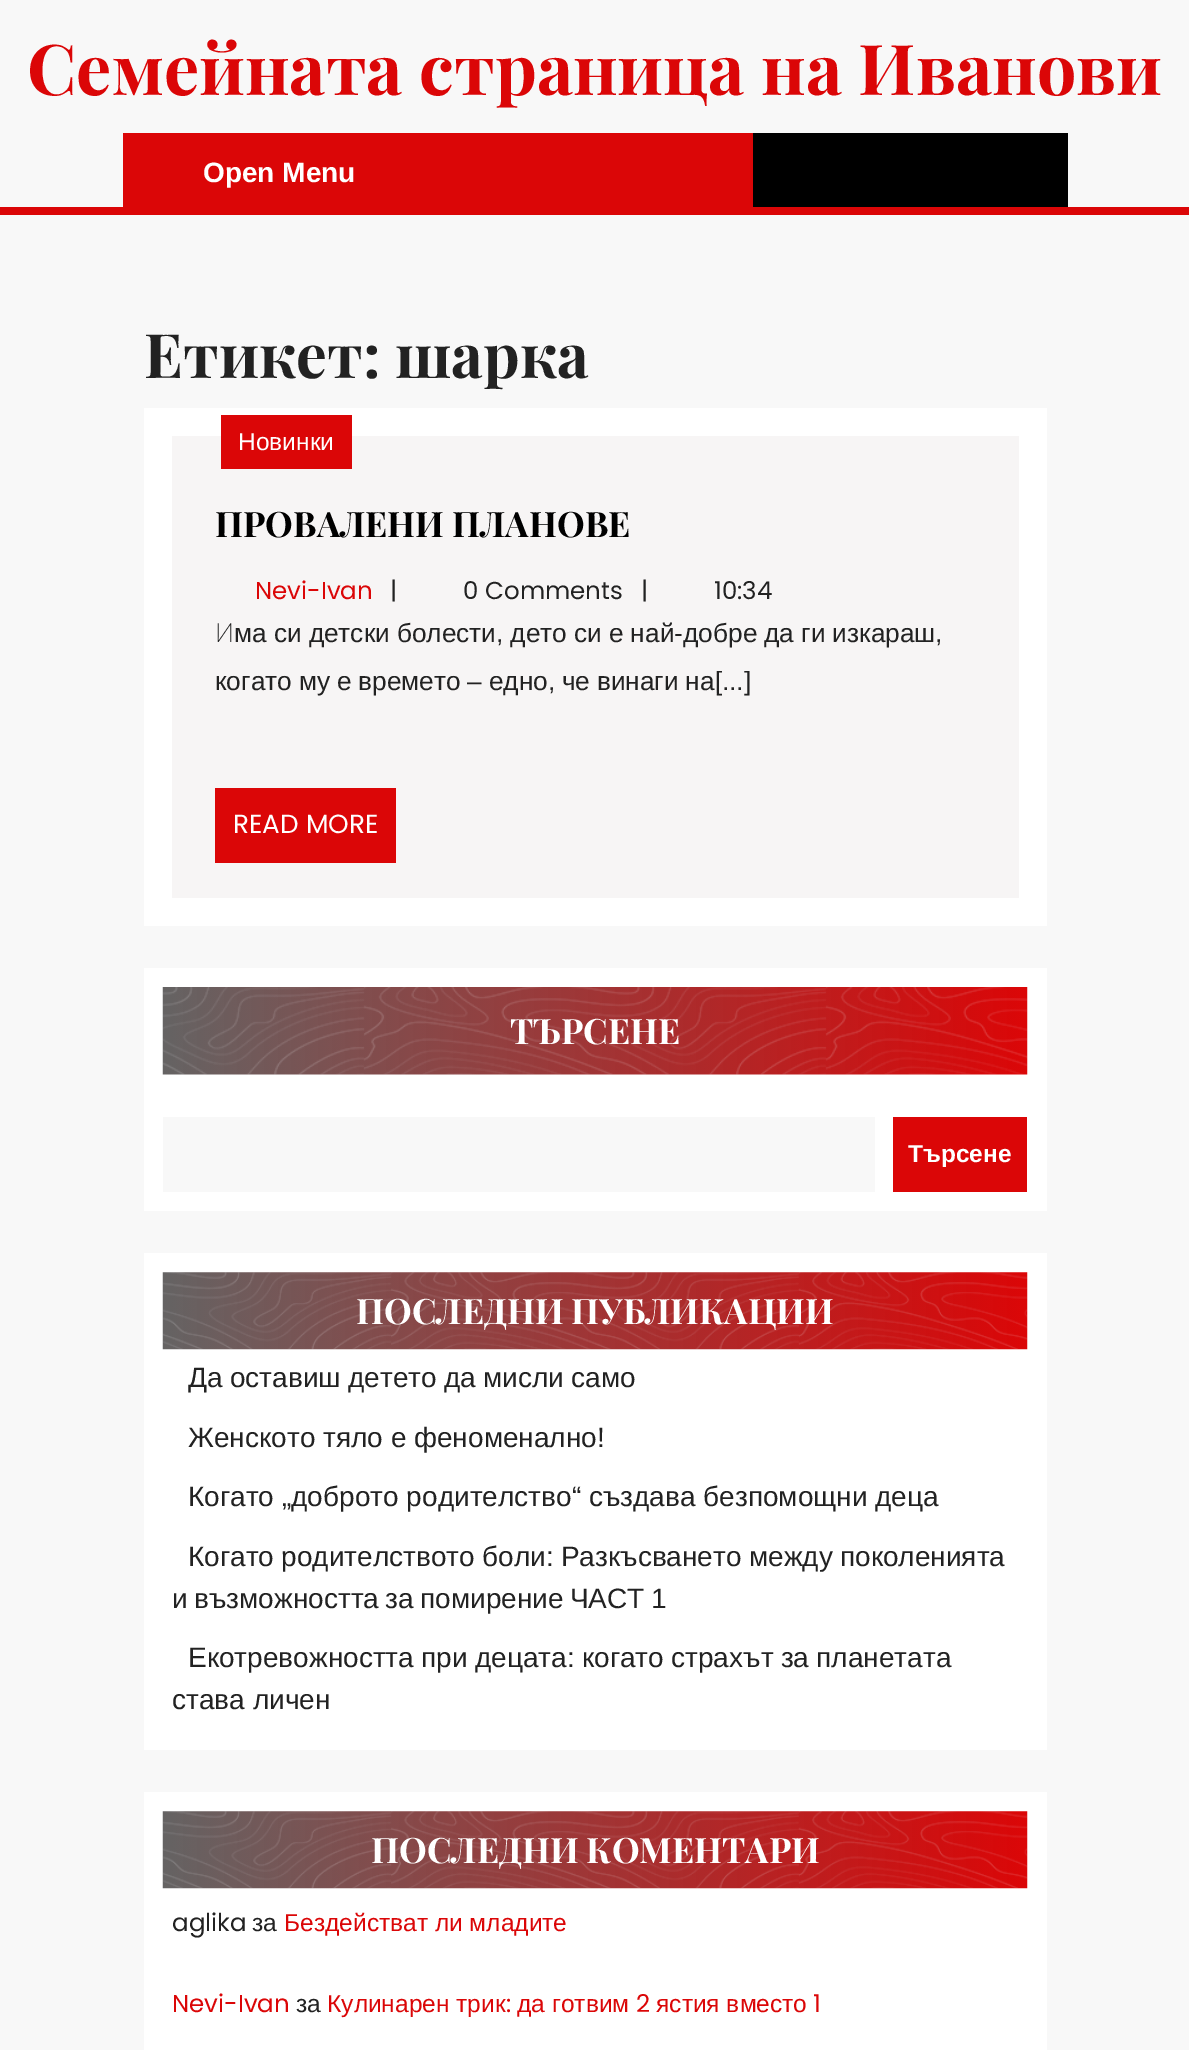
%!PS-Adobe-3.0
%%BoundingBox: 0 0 1189 2050
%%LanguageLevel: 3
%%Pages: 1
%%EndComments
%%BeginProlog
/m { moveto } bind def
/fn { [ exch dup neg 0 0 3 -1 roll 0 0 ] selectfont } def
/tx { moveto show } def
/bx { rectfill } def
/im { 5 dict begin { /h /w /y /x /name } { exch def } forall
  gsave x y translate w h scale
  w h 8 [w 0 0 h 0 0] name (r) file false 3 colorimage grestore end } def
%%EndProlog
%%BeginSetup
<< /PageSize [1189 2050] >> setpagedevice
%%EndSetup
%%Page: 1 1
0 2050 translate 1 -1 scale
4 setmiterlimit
0.973 setgray
0 0 1189 2050 bx
0.859 0.024 0.027 setrgbcolor
0 207 1189 8 bx
/PlayfairDisplay-Bold 70 fn
(Семейната страница на Иванови) 27 95 tx
123 133 630 74 bx
/LiberationSans-Bold 28 fn
1 setgray
(Open Menu) 203 182 tx
0 setgray
753 133 315 74 bx
/PlayfairDisplay-Bold 61.25 fn
0.133 setgray
(Етикет: шарка) 144 378 tx
1 setgray
144 408 903 518 bx
0.969 0.961 0.961 setrgbcolor
172 436 847 462 bx
0.859 0.024 0.027 setrgbcolor
221 415 131 54 bx
/LiberationSans-Regular 24.5 fn
1 setgray
(Новинки) 238 450 tx
/PlayfairDisplay-Bold 35 fn
0 setgray
(ПРОВАЛЕНИ ПЛАНОВЕ) 215 537 tx
/Poppins-Regular 24.5 fn
0.859 0.024 0.027 setrgbcolor
(Nevi-Ivan) 255 599 tx
0.133 setgray
(|) 390 599 tx
(0 Comments) 463 599 tx
(|) 641 599 tx
(10:34) 714 599 tx
/NotoSans-ExtraLight 26.25 fn
(И) 215 642 tx
/LiberationSans-Regular 26.25 fn
234 642 m -0.25 0 32 (ма си детски болести, дето си е най-добре да ги изкараш,) widthshow
215 690 m -0.5 0 32 (когато му е времето – едно, че винаги на[...]) widthshow
0.859 0.024 0.027 setrgbcolor
215 788 181 75 bx
/Poppins-Regular 26.25 fn
1 setgray
(READ MORE) 233 833 tx
144 968 903 243 bx
(image0.raw) 162 987 866 88 im
/PlayfairDisplay-Bold 35 fn
(ТЪРСЕНЕ) 510 1044 tx
0.973 setgray
163 1117 712 75 bx
0.859 0.024 0.027 setrgbcolor
893 1117 134 75 bx
/LiberationSans-Bold 24.5 fn
1 setgray
(Търсене) 908 1162 tx
144 1253 903 497 bx
(image1.raw) 162 1272 866 78 im
/PlayfairDisplay-Bold 35 fn
(ПОСЛЕДНИ ПУБЛИКАЦИИ) 356 1324 tx
/LiberationSans-Regular 28 fn
0.133 setgray
188 1387 m -0.5 0 32 (Да оставиш детето да мисли само) widthshow
(Женското тяло е феноменално!) 188 1447 tx
(Когато „доброто родителство“ създава безпомощни деца) 188 1506 tx
188 1566 m -0.5 0 32 (Когато родителството боли: Разкъсването между поколенията) widthshow
172 1608 m -1.5 0 32 (и възможността за помирение ЧАСТ 1) widthshow
188 1667 m -0.5 0 32 (Екотревожността при децата: когато страхът за планетата) widthshow
(става личен) 172 1709 tx
1 setgray
144 1792 903 258 bx
(image2.raw) 162 1811 866 78 im
/PlayfairDisplay-Bold 35 fn
(ПОСЛЕДНИ КОМЕНТАРИ) 371 1863 tx
/Poppins-Regular 24.5 fn
0.133 setgray
(aglika) 172 1931 tx
/LiberationSans-Regular 24.5 fn
(за) 252 1931 tx
0.859 0.024 0.027 setrgbcolor
(Бездействат ли младите) 284 1931 tx
/Poppins-Regular 24.5 fn
(Nevi-Ivan) 172 2012 tx
/LiberationSans-Regular 24.5 fn
0.133 setgray
(за) 296 2012 tx
0.859 0.024 0.027 setrgbcolor
(Кулинарен трик) 327 2012 tx
/Poppins-Regular 24.5 fn
(:) 506 2012 tx
/LiberationSans-Regular 24.5 fn
(да готвим) 517 2012 tx
/Poppins-Regular 24.5 fn
(2) 636 2012 tx
/LiberationSans-Regular 24.5 fn
(ястия вместо) 656 2012 tx
/Poppins-Regular 24.5 fn
(1) 813 2012 tx
showpage
%%EOF
